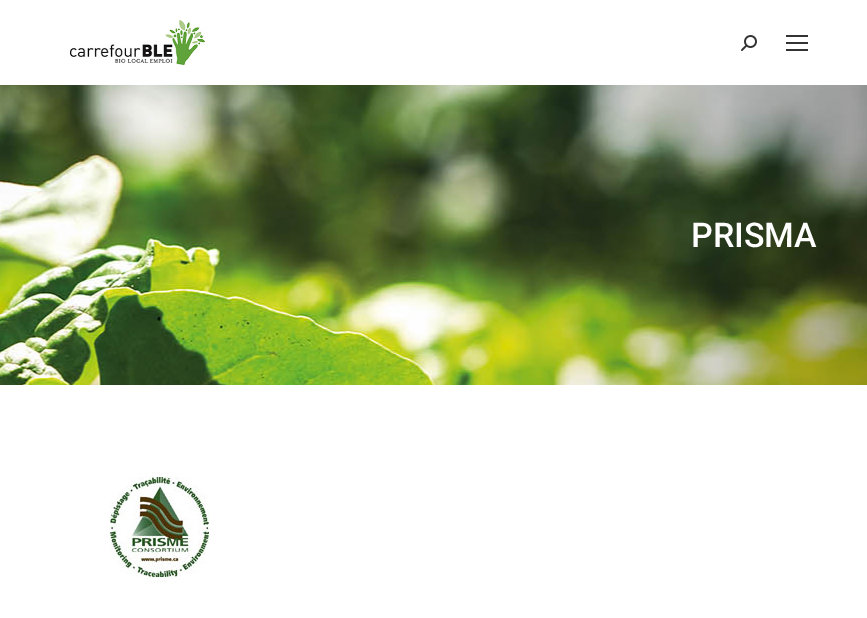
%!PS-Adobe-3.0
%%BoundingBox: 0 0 867 618
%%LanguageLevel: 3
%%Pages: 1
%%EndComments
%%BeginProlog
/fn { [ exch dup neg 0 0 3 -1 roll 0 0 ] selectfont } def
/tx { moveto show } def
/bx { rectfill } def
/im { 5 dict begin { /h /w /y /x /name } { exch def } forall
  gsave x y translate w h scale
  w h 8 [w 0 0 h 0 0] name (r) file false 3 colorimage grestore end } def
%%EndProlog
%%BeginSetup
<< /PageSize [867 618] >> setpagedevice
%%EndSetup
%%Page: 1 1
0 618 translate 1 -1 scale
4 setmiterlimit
1 setgray
0 0 867 618 bx
(image0.raw) 70 20 135 45 im
(image1.raw) 741 35 16 16 im
0.2 setgray
786 35 22 2 bx
786 42 22 2 bx
786 49 22 2 bx
(image2.raw) 0 85 867 300 im
/Roboto-Medium 34 fn
1 setgray
(PRISMA) 691 247 tx
(image3.raw) 109 472 101 111 im
showpage
%%EOF
